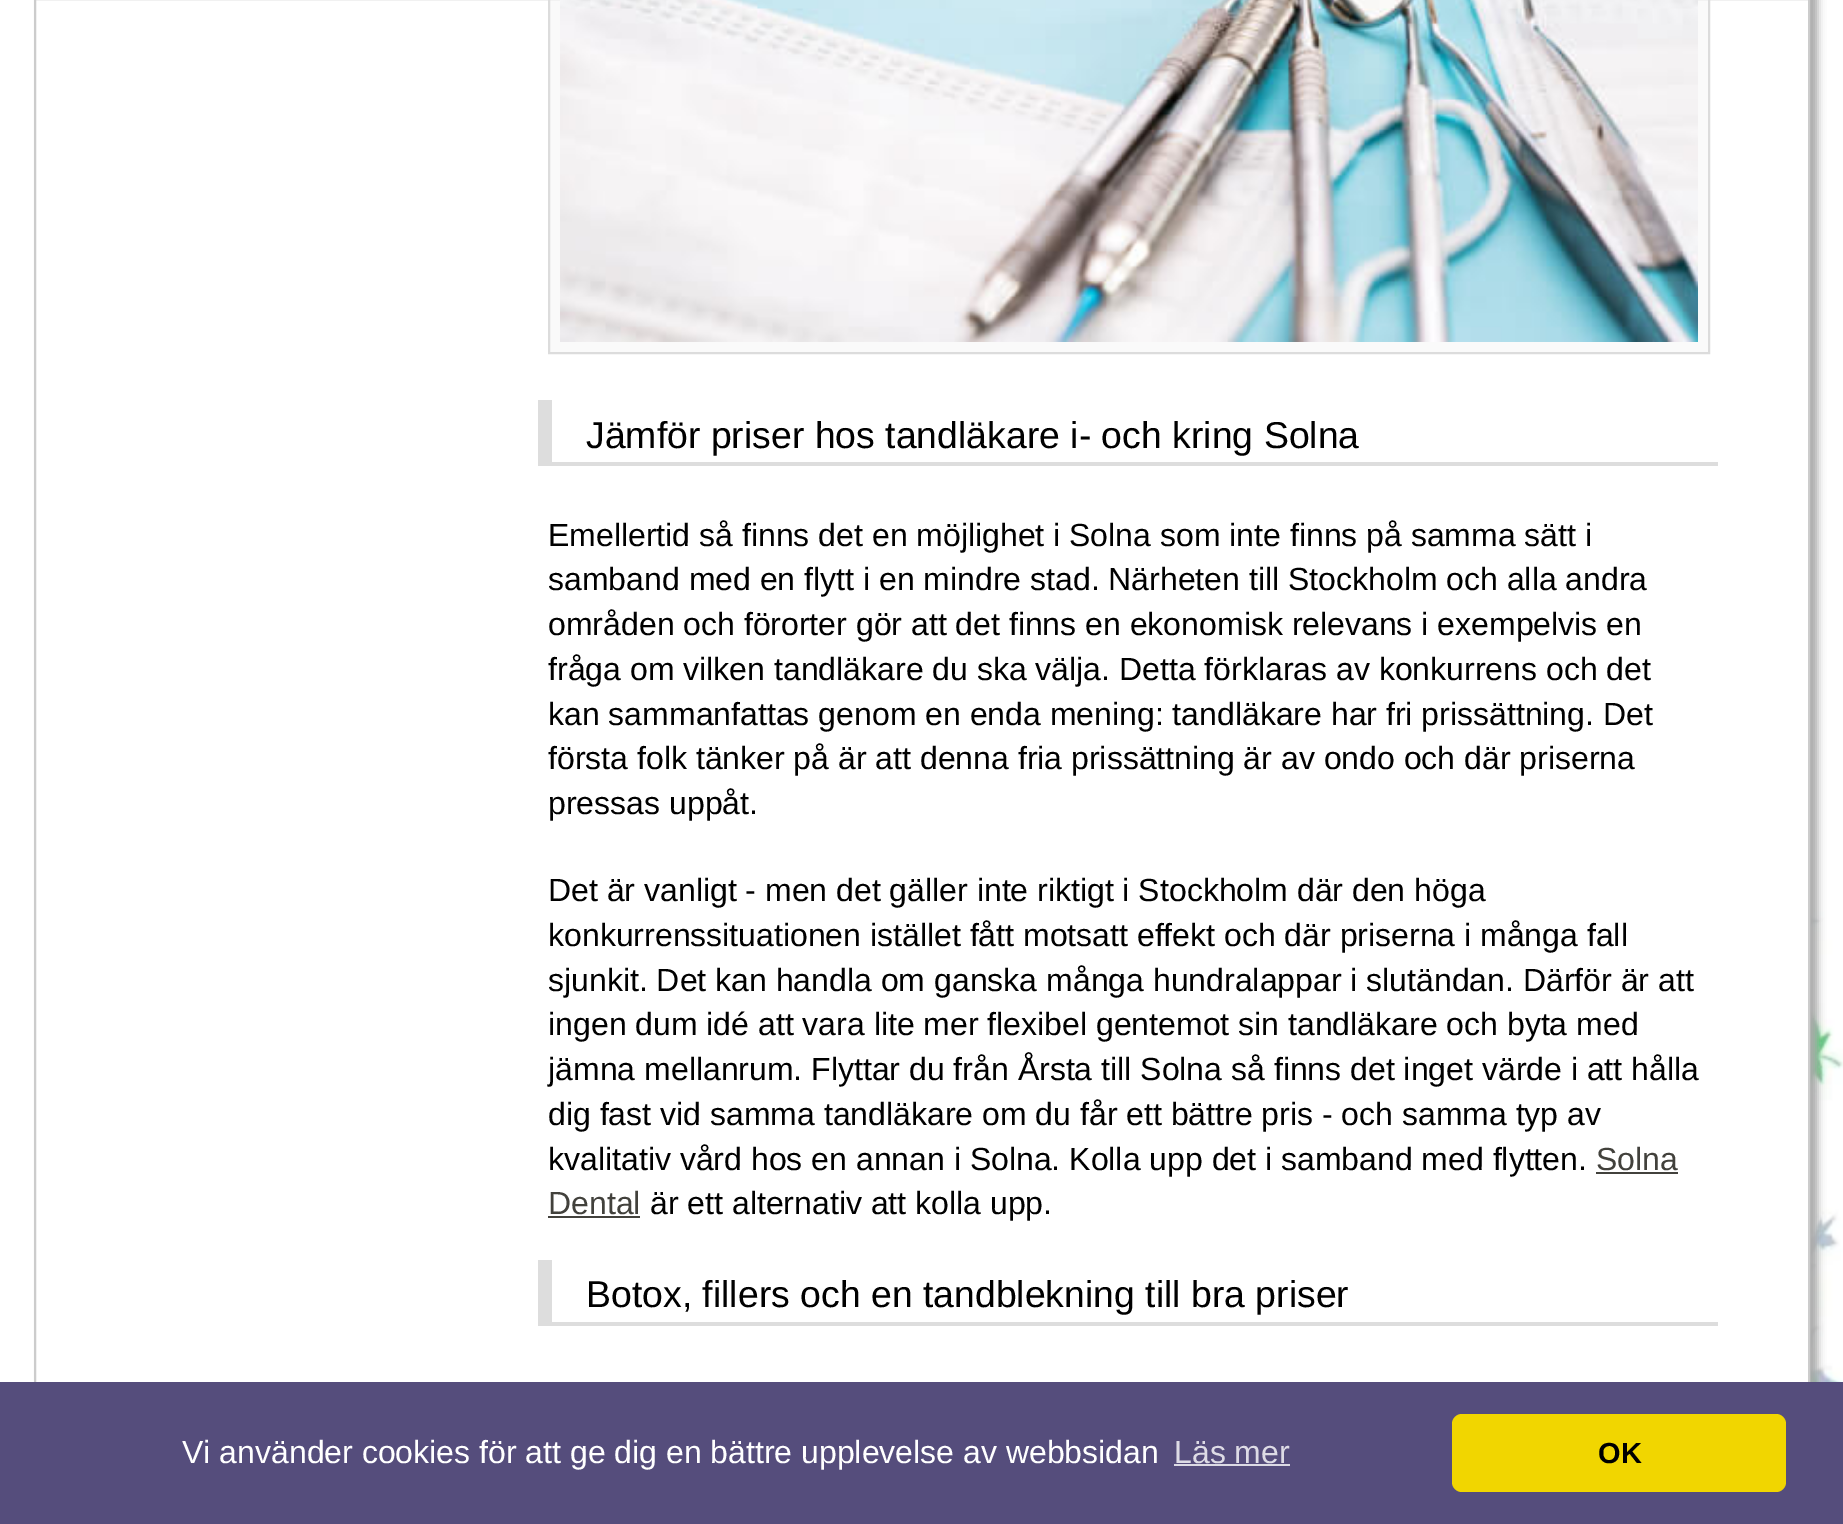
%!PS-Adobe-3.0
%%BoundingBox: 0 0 1843 1524
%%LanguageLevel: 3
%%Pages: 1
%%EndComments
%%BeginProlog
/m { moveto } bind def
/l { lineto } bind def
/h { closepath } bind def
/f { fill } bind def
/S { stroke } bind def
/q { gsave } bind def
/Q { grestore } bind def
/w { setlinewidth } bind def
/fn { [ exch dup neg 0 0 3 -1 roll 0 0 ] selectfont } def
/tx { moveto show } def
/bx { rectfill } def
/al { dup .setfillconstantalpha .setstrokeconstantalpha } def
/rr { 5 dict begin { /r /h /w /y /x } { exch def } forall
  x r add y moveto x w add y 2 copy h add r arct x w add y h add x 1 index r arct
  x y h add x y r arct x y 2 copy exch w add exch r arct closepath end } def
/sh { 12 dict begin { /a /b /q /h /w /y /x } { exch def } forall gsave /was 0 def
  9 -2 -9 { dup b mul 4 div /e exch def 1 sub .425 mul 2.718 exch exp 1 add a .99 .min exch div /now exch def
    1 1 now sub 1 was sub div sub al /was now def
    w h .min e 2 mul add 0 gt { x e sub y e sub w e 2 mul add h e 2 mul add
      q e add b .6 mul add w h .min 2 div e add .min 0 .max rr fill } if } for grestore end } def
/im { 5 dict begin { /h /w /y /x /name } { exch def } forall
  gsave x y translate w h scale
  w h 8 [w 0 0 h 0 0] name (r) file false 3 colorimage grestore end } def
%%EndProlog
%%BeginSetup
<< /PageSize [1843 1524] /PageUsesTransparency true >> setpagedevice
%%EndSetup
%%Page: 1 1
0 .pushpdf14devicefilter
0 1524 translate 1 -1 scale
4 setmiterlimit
1 setgray
0 0 1843 1524 bx
(image0.raw) 1810 871 33 511 im
0.667 setgray
42 -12 1776 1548 0 4 1 sh
1 setgray
36 0 1772 1382 bx
0.8 setgray
2 w
35 -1 1774 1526 rectstroke
0.98 setgray
549 -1 m 1709 -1 l 1709 353 l 549 353 l h q f Q
0.863 setgray
S
(image1.raw) 560 0 1138 342 im
0.867 setgray
552 462 1166 4 bx
538 400 14 66 bx
/LiberationSans-Regular 37.4 fn
0 setgray
(Jämför priser hos tandläkare i- och kring Solna) 586 448 tx
/LiberationSans-Regular 32 fn
(Emellertid så finns det en möjlighet i Solna som inte finns på samma sätt i) 548 546 tx
(samband med en flytt i en mindre stad. Närheten till Stockholm och alla andra) 548 590 tx
(områden och förorter gör att det finns en ekonomisk relevans i exempelvis en) 548 635 tx
(fråga om vilken tandläkare du ska välja. Detta förklaras av konkurrens och det) 548 680 tx
(kan sammanfattas genom en enda mening: tandläkare har fri prissättning. Det) 548 725 tx
(första folk tänker på är att denna fria prissättning är av ondo och där priserna) 548 769 tx
(pressas uppåt.) 548 814 tx
(Det är vanligt - men det gäller inte riktigt i Stockholm där den höga) 548 901 tx
(konkurrenssituationen istället fått motsatt effekt och där priserna i många fall) 548 946 tx
(sjunkit. Det kan handla om ganska många hundralappar i slutändan. Därför är att) 548 991 tx
(ingen dum idé att vara lite mer flexibel gentemot sin tandläkare och byta med) 548 1035 tx
(jämna mellanrum. Flyttar du från Årsta till Solna så finns det inget värde i att hålla) 548 1080 tx
(dig fast vid samma tandläkare om du får ett bättre pris - och samma typ av) 548 1125 tx
(kvalitativ vård hos en annan i Solna. Kolla upp det i samband med flytten.) 548 1170 tx
0.259 0.255 0.235 setrgbcolor
(Solna) 1596 1170 tx
1596 1172 82 2 bx
(Dental) 548 1214 tx
548 1216 92 2 bx
0 setgray
(är ett alternativ att kolla upp.) 650 1214 tx
0.867 setgray
552 1322 1166 4 bx
538 1260 14 66 bx
/LiberationSans-Regular 37.4 fn
0 setgray
(Botox, fillers och en tandblekning till bra priser) 586 1307 tx
0.333 0.302 0.486 setrgbcolor
0 1382 1843 142 bx
/LiberationSans-Regular 32 fn
1 setgray
(Vi använder cookies för att ge dig en bättre upplevelse av webbsidan) 182 1463 tx
0.867 0.859 0.898 setrgbcolor
(Läs mer) 1174 1463 tx
1174 1464 116 2 bx
0.945 0.839 0 setrgbcolor
1452 1414 334 78 10 rr f
/LiberationSans-Bold 29 fn
0 setgray
(OK) 1598 1463 tx
.poppdf14devicefilter showpage
%%EOF
